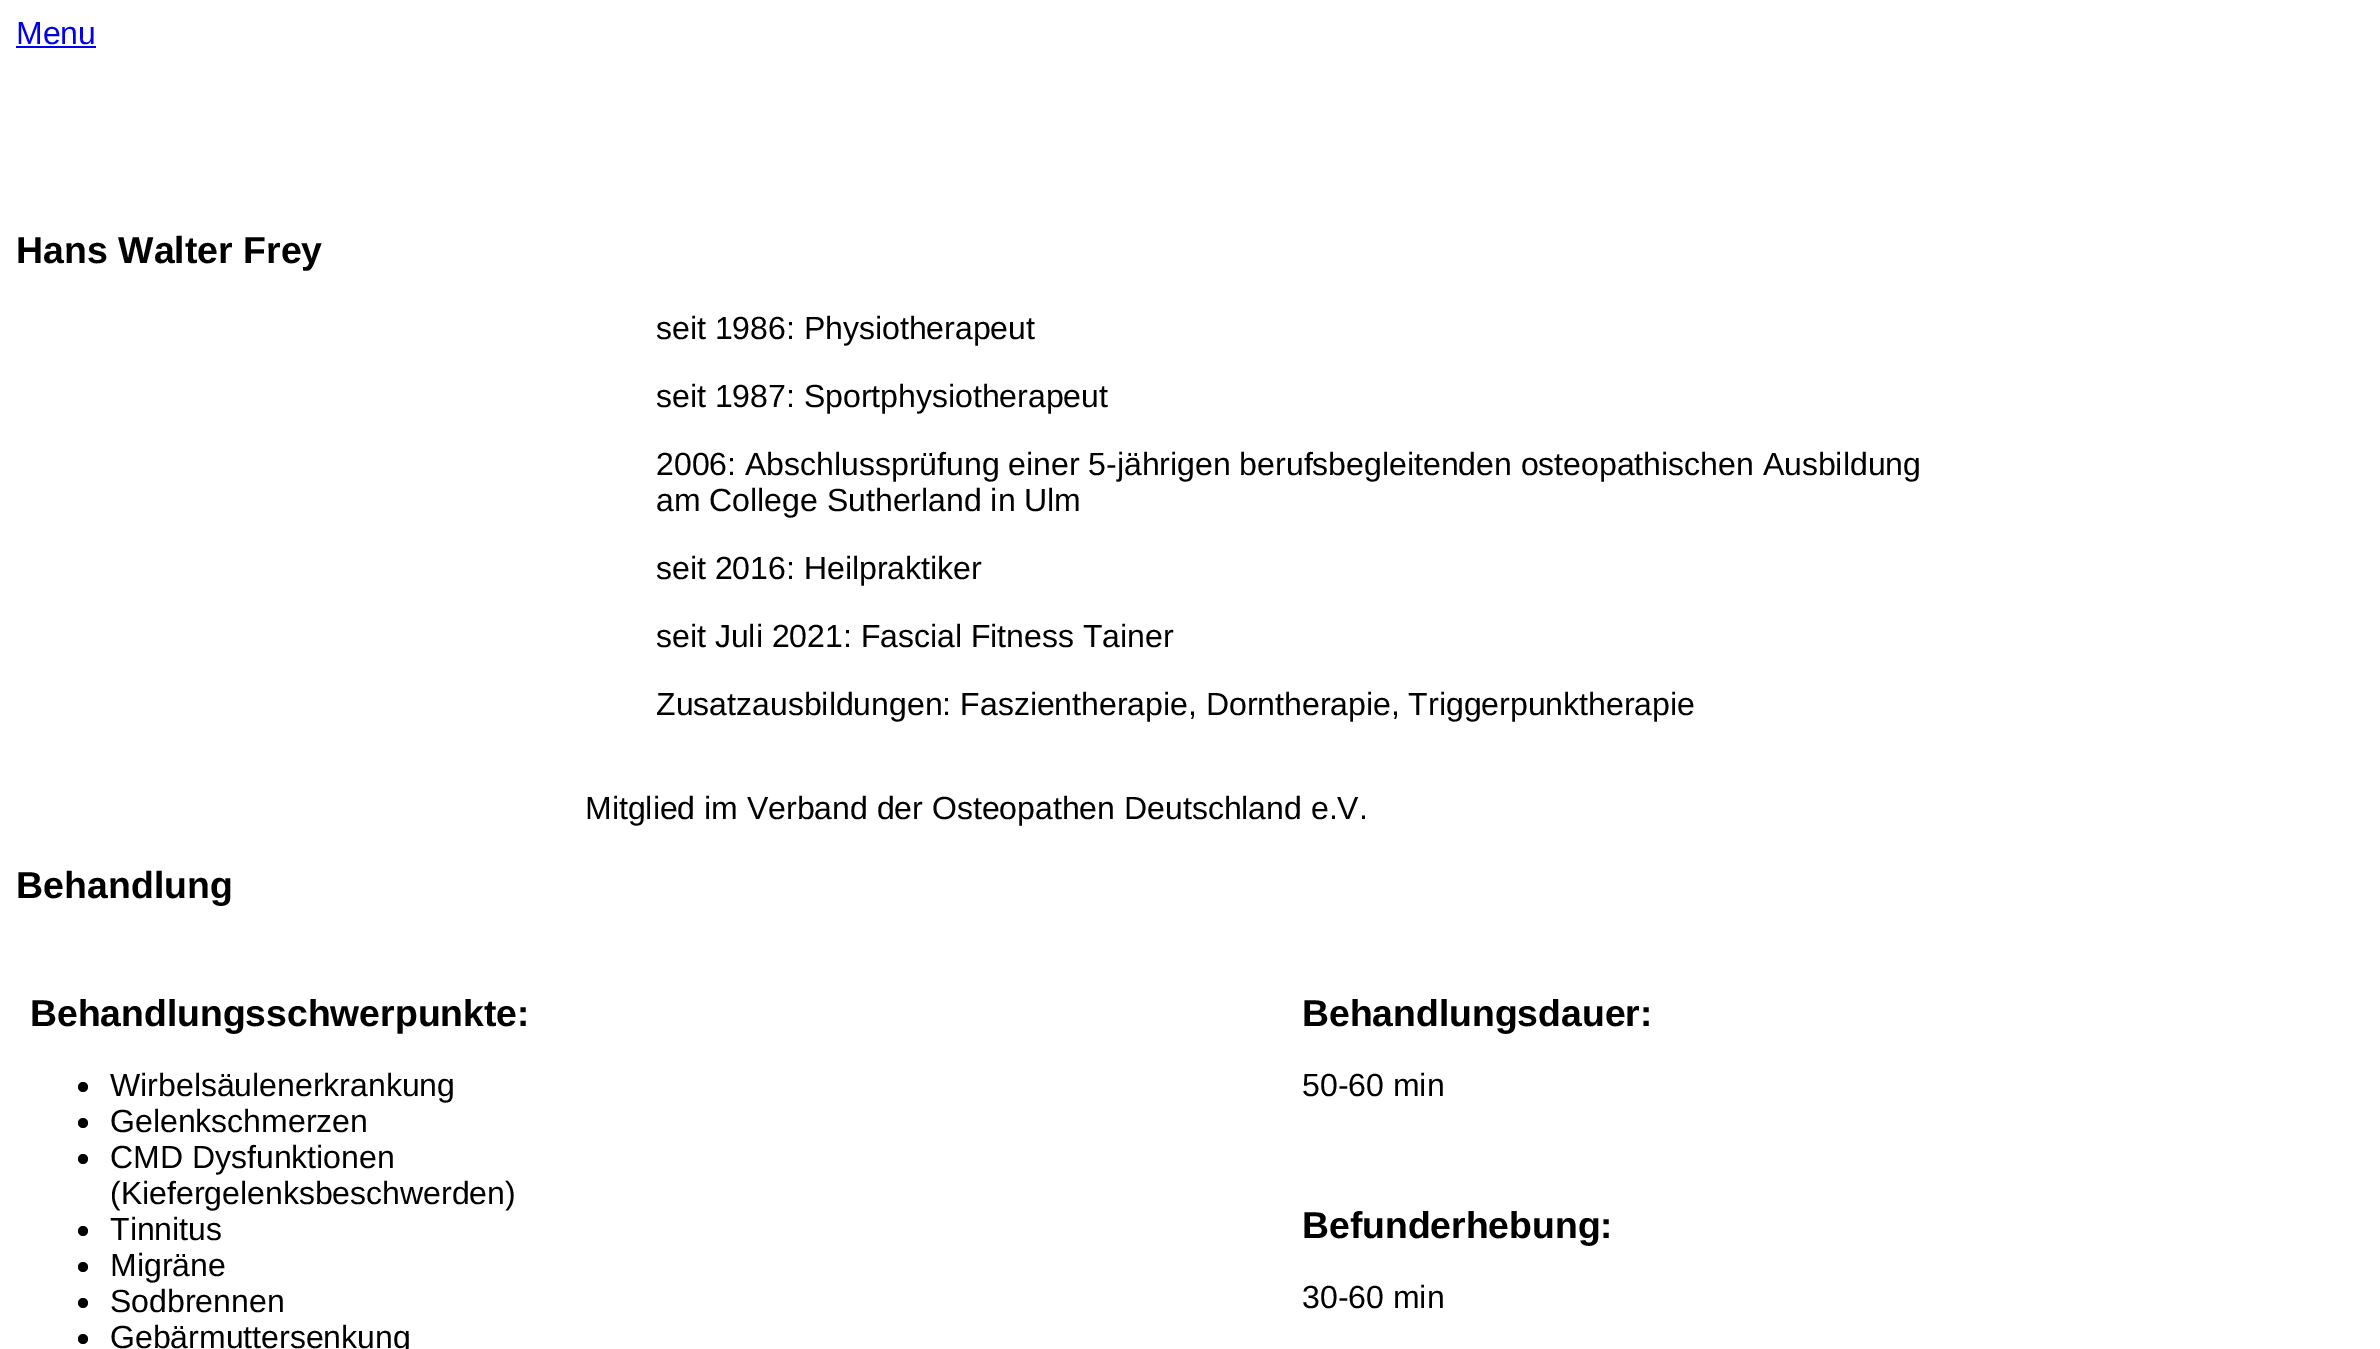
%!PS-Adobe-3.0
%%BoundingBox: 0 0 2380 1349
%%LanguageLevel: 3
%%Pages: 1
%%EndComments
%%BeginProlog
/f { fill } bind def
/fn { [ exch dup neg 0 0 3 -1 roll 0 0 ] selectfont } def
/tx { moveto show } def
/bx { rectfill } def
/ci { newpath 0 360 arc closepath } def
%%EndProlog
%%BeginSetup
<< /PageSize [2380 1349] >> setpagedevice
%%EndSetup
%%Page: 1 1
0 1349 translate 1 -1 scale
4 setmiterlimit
1 setgray
0 0 2380 1349 bx
/LiberationSans-Regular 32 fn
0 0 0.933 setrgbcolor
(Menu) 16 44 tx
16 46 80 2 bx
/LiberationSans-Bold 37.5 fn
0 setgray
(Hans Walter Frey) 16 263 tx
/LiberationSans-Regular 32 fn
(seit 1986: Physiotherapeut) 656 339 tx
(seit 1987: Sportphysiotherapeut) 656 407 tx
(2006: Abschlussprüfung einer 5-jährigen berufsbegleitenden osteopathischen Ausbildung) 656 475 tx
(am College Sutherland in Ulm) 656 511 tx
(seit 2016: Heilpraktiker) 656 579 tx
(seit Juli 2021: Fascial Fitness Tainer) 656 647 tx
(Zusatzausbildungen: Faszientherapie, Dorntherapie, Triggerpunktherapie) 656 715 tx
(Mitglied im Verband der Osteopathen Deutschland e.V.) 585 819 tx
/LiberationSans-Bold 37.5 fn
(Behandlung) 16 898 tx
/LiberationSans-Bold 37.3 fn
(Behandlungsschwerpunkte:) 30 1026 tx
83 1087 5 ci f
/LiberationSans-Regular 32 fn
(Wirbelsäulenerkrankung) 110 1096 tx
83 1123 5 ci f
(Gelenkschmerzen) 110 1132 tx
83 1159 5 ci f
(CMD Dysfunktionen) 110 1168 tx
(\(Kiefergelenksbeschwerden\)) 110 1204 tx
83 1231 5 ci f
(Tinnitus) 110 1240 tx
83 1267 5 ci f
(Migräne) 110 1276 tx
83 1303 5 ci f
(Sodbrennen) 110 1312 tx
83 1339 5 ci f
(Gebärmuttersenkung) 110 1348 tx
/LiberationSans-Bold 37.3 fn
(Behandlungsdauer:) 1302 1026 tx
/LiberationSans-Regular 32 fn
(50-60 min) 1302 1096 tx
/LiberationSans-Bold 37.3 fn
(Befunderhebung:) 1302 1238 tx
/LiberationSans-Regular 32 fn
(30-60 min) 1302 1308 tx
showpage
%%EOF
